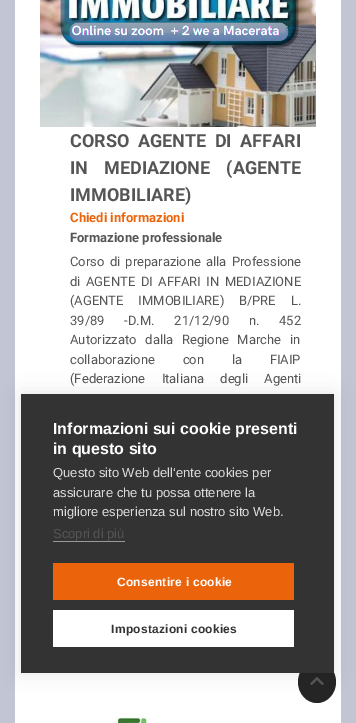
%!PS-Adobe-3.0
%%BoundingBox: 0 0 356 723
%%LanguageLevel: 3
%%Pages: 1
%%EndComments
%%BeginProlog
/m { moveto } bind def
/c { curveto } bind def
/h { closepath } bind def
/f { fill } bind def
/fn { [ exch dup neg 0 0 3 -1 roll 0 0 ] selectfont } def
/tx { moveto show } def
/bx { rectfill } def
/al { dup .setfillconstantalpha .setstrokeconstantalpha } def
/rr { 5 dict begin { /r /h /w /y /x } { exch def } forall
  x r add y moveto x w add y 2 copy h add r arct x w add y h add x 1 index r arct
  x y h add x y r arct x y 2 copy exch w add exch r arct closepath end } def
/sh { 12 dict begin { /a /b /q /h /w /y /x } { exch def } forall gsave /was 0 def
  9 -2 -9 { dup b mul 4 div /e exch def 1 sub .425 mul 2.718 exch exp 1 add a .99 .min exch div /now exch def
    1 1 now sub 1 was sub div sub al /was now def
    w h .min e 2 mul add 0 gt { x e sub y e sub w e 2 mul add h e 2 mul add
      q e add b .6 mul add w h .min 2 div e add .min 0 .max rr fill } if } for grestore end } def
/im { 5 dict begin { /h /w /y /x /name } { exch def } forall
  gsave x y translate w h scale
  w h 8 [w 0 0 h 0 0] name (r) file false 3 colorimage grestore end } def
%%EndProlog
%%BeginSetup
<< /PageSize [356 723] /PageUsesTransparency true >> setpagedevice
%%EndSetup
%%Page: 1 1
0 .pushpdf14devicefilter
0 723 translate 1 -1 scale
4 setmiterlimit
0.761 0.773 0.831 setrgbcolor
0 0 356 723 bx
1 setgray
15 0 326 723 bx
(image0.raw) 40 0 276 127 im
/Roboto-Bold 18 fn
0.333 setgray
70 147 m 4 0 32 (CORSO AGENTE DI AFFARI) widthshow
70 174 m 11.5 0 32 (IN MEDIAZIONE \(AGENTE) widthshow
(IMMOBILIARE\)) 70 201 tx
/Roboto-Bold 13 fn
0.922 0.388 0.043 setrgbcolor
(Chiedi informazioni) 70 222 tx
0.333 setgray
(Formazione professionale) 70 242 tx
/Roboto-Regular 13 fn
70 266 m 2 0 32 (Corso di preparazione alla Professione) widthshow
70 286 m 2.25 0 32 (di AGENTE DI AFFARI IN MEDIAZIONE) widthshow
70 305 m 11.5 0 32 (\(AGENTE IMMOBILIARE\) B/PRE L.) widthshow
70 325 m 16.5 0 32 (39/89 -D.M. 21/12/90 n. 452) widthshow
70 344 m 5.5 0 32 (Autorizzato dalla Regione Marche in) widthshow
70 364 m 24.5 0 32 (collaborazione con la FIAIP) widthshow
70 383 m 13 0 32 (\(Federazione Italiana degli Agenti) widthshow
(image1.raw) 115 712 35 11 im
0.145 setgray
317 661 m 327.5 661 336 670.5 336 682 c 336 693.5 327.5 703 317 703 c 306.5 703 298 693.5 298 682 c 298 670.5 306.5 661 317 661 c h f
(image2.raw) 310 677 14 8 im
0 setgray
21 394 313 279 0 10 0.1 sh
0.2 setgray
21 394 313 279 bx
/LiberationSans-Bold 16 fn
1 setgray
(Informazioni sui cookie presenti) 53 434 tx
(in questo sito) 53 454 tx
/LiberationSans-Regular 13 fn
0.867 setgray
(Questo sito Web dell‘ente cookies per) 53 477 tx
(assicurare che tu possa ottenere la) 53 497 tx
(migliore esperienza sul nostro sito Web.) 53 516 tx
0.333 setgray
(Scopri di più) 53 538 tx
0.6 setgray
53 541 72 1 bx
0.922 0.388 0.043 setrgbcolor
53 563 241 37 bx
/LiberationSans-Bold 12 fn
1 setgray
117 586 m 0.25 0 (Consentire i cookie) ashow
53 610 241 37 bx
0.2 setgray
111 633 m 0.25 0 (Impostazioni cookies) ashow
.poppdf14devicefilter showpage
%%EOF
